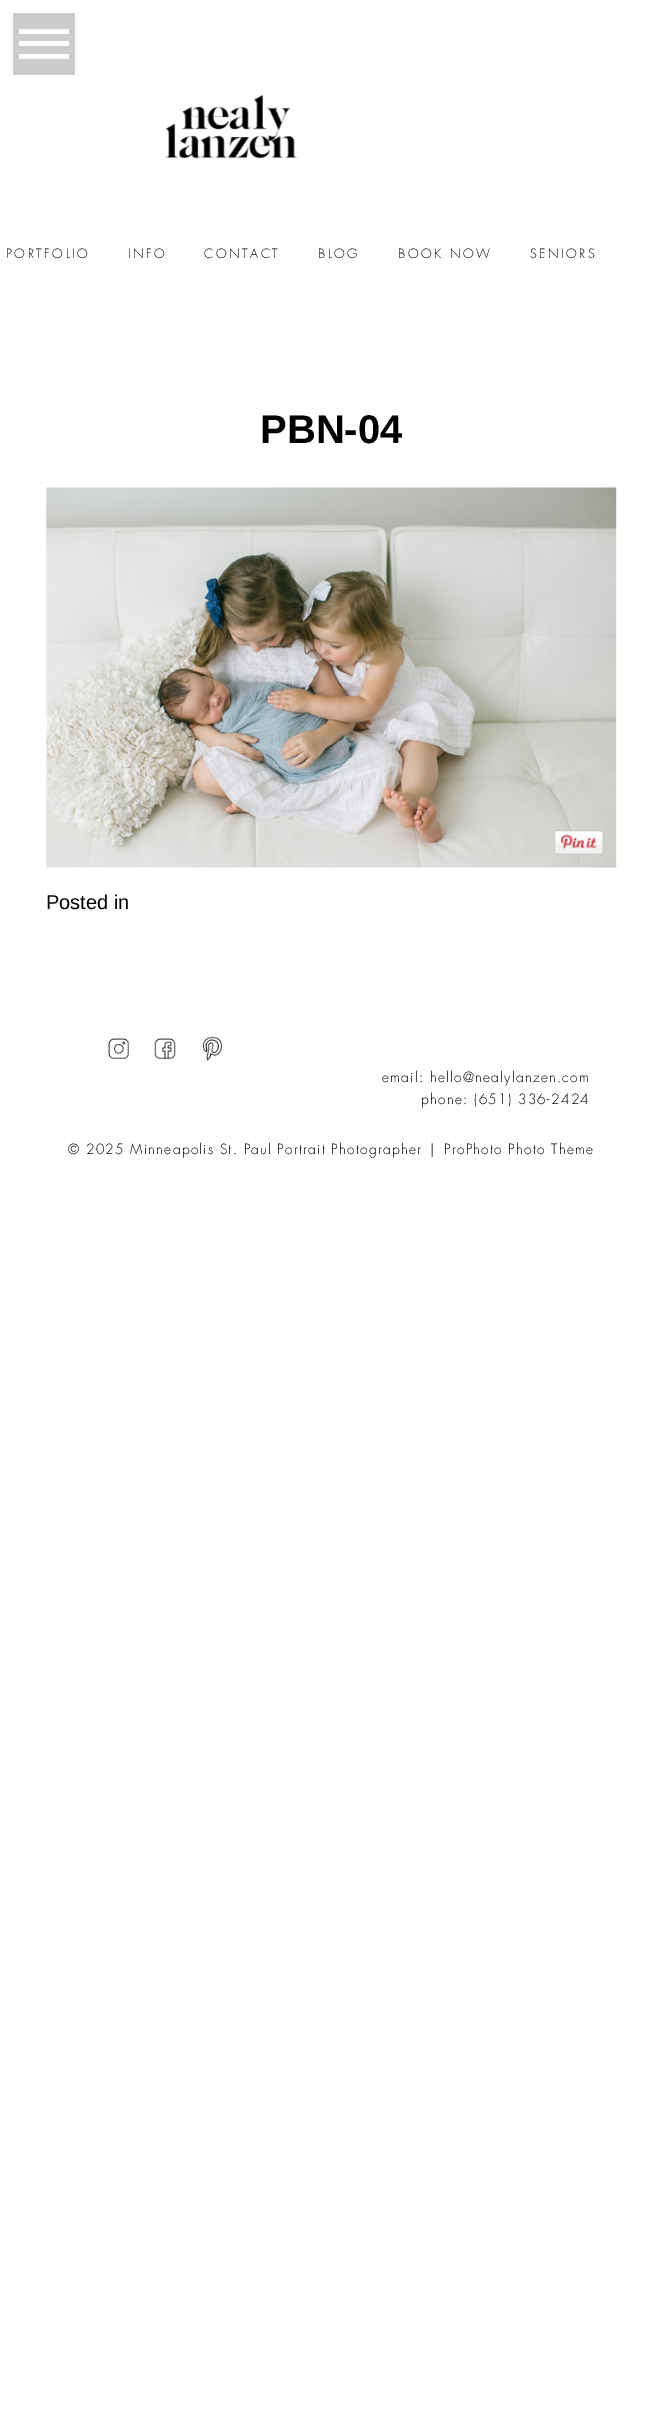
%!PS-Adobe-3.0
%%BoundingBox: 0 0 662 2426
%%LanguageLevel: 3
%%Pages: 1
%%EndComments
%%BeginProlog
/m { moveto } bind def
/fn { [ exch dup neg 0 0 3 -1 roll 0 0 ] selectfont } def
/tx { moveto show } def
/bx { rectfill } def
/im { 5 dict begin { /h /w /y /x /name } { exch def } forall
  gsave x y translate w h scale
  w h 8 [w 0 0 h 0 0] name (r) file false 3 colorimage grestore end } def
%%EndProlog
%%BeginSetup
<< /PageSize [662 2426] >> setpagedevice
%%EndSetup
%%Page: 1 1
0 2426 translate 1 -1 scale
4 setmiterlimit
1 setgray
0 0 662 2426 bx
0.8 setgray
13 13 62 62 bx
1 setgray
19 29 50 5 bx
19 41 50 5 bx
19 54 50 5 bx
(image0.raw) 165 95 133 64 im
/Futura-Light 12.5 fn
0 setgray
6 258 m 2.5 0 (PORTFOLIO) ashow
128 258 m 2.5 0 (INFO) ashow
204 258 m 2.5 0 (CONTACT) ashow
318 258 m 2.5 0 (BLOG) ashow
398 258 m 2.5 0 (BOOK NOW) ashow
530 258 m 2.5 0 (SENIORS) ashow
/LiberationSans-Bold 40 fn
(PBN-04) 260 443 tx
(image1.raw) 46 487 571 381 im
(image2.raw) 554 830 50 25 im
/LiberationSans-Regular 20 fn
(Posted in) 46 909 tx
(image3.raw) 108 1038 22 22 im
(image4.raw) 154 1038 22 22 im
(image5.raw) 203 1036 19 25 im
/Futura-Light 13.75 fn
382 1082 m 1.25 0 (email: hello@nealylanzen.com) ashow
421 1104 m 1.25 0 (phone: \(651\) 336-2424) ashow
68 1154 m 1.25 0 (© 2025 Minneapolis St. Paul Portrait Photographer) ashow
430 1154 m 1.25 0 (|) ashow
444 1154 m 1.25 0 (ProPhoto Photo Theme) ashow
showpage
%%EOF
